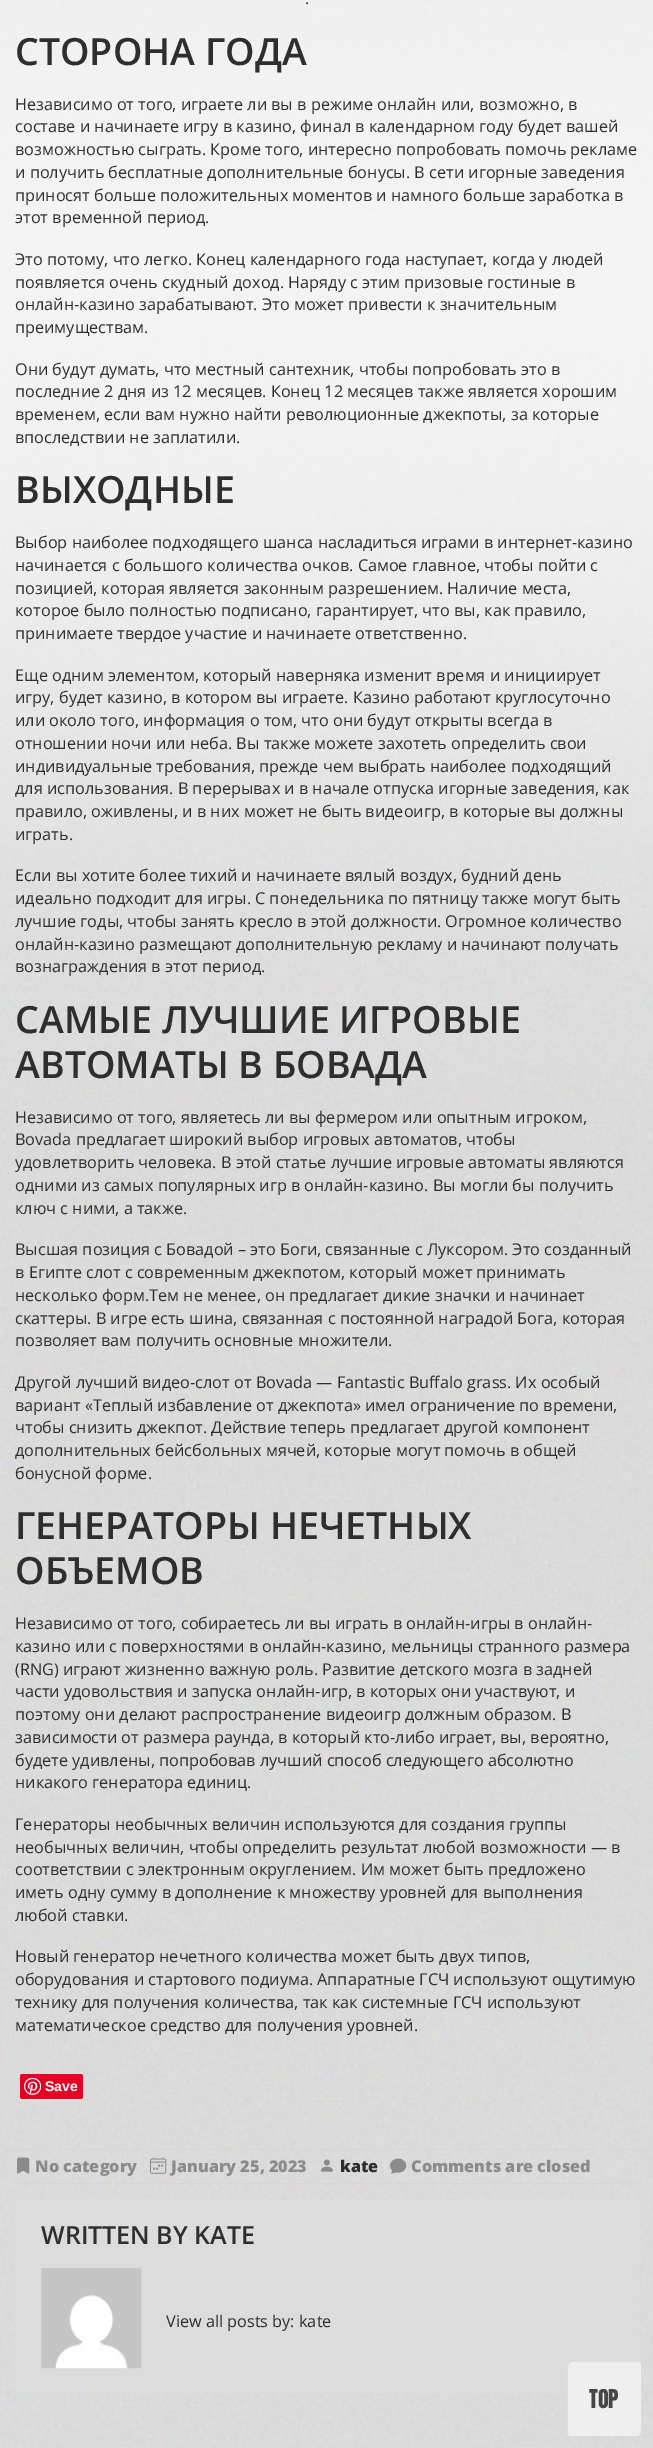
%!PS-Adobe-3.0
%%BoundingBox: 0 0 653 2448
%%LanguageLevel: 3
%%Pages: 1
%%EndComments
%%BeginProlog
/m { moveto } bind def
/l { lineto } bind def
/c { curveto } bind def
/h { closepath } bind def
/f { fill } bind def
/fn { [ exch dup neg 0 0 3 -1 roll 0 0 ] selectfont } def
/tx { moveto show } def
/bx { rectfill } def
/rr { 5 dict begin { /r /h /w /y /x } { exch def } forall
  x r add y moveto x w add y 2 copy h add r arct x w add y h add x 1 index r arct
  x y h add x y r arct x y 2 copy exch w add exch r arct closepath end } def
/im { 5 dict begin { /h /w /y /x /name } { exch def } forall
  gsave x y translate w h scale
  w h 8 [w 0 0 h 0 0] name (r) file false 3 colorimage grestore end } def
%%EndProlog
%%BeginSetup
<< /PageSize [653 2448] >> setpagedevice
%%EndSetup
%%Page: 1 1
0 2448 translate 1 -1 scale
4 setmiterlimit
1 setgray
0 0 653 2448 bx
(image0.raw) 0 0 653 2448 im
/OpenSans-Regular 16.25 fn
0.18 setgray
(.) 305 4 tx
/OpenSans-SemiBold 37.5 fn
(СТОРОНА ГОДА) 15 65 tx
/OpenSans-Regular 16.25 fn
(Независимо от того, играете ли вы в режиме онлайн или, возможно, в) 15 110 tx
(составе и начинаете игру в казино, финал в календарном году будет вашей) 15 132 tx
(возможностью сыграть. Кроме того, интересно попробовать помочь рекламе) 15 155 tx
(и получить бесплатные дополнительные бонусы. В сети игорные заведения) 15 178 tx
(приносят больше положительных моментов и намного больше заработка в) 15 201 tx
(этот временной период.) 15 223 tx
(Это потому, что легко. Конец календарного года наступает, когда у людей) 15 265 tx
(появляется очень скудный доход. Наряду с этим призовые гостиные в) 15 288 tx
(онлайн-казино зарабатывают. Это может привести к значительным) 15 310 tx
(преимуществам.) 15 333 tx
(Они будут думать, что местный сантехник, чтобы попробовать это в) 15 375 tx
(последние 2 дня из 12 месяцев. Конец 12 месяцев также является хорошим) 15 397 tx
(временем, если вам нужно найти революционные джекпоты, за которые) 15 420 tx
(впоследствии не заплатили.) 15 443 tx
/OpenSans-SemiBold 37.5 fn
(ВЫХОДНЫЕ) 15 503 tx
/OpenSans-Regular 16.25 fn
(Выбор наиболее подходящего шанса насладиться играми в интернет-казино) 15 548 tx
(начинается с большого количества очков. Самое главное, чтобы пойти с) 15 571 tx
(позицией, которая является законным разрешением. Наличие места,) 15 594 tx
(которое было полностью подписано, гарантирует, что вы, как правило,) 15 616 tx
(принимаете твердое участие и начинаете ответственно.) 15 639 tx
(Еще одним элементом, который наверняка изменит время и инициирует) 15 681 tx
(игру, будет казино, в котором вы играете. Казино работают круглосуточно) 15 703 tx
(или около того, информация о том, что они будут открыты всегда в) 15 726 tx
(отношении ночи или неба. Вы также можете захотеть определить свои) 15 749 tx
(индивидуальные требования, прежде чем выбрать наиболее подходящий) 15 772 tx
(для использования. В перерывах и в начале отпуска игорные заведения, как) 15 794 tx
(правило, оживлены, и в них может не быть видеоигр, в которые вы должны) 15 817 tx
(играть.) 15 840 tx
(Если вы хотите более тихий и начинаете вялый воздух, будний день) 15 881 tx
(идеально подходит для игры. С понедельника по пятницу также могут быть) 15 904 tx
(лучшие годы, чтобы занять кресло в этой должности. Огромное количество) 15 927 tx
(онлайн-казино размещают дополнительную рекламу и начинают получать) 15 950 tx
(вознаграждения в этот период.) 15 972 tx
/OpenSans-SemiBold 37.5 fn
(САМЫЕ ЛУЧШИЕ ИГРОВЫЕ) 15 1033 tx
(АВТОМАТЫ В БОВАДА) 15 1078 tx
/OpenSans-Regular 16.25 fn
(Независимо от того, являетесь ли вы фермером или опытным игроком,) 15 1123 tx
(Bovada предлагает широкий выбор игровых автоматов, чтобы) 15 1145 tx
(удовлетворить человека. В этой статье лучшие игровые автоматы являются) 15 1168 tx
(одними из самых популярных игр в онлайн-казино. Вы могли бы получить) 15 1191 tx
(ключ с ними, а также.) 15 1214 tx
(Высшая позиция с Бовадой – это Боги, связанные с Луксором. Это созданный) 15 1255 tx
(в Египте слот с современным джекпотом, который может принимать) 15 1278 tx
(несколько форм.Тем не менее, он предлагает дикие значки и начинает) 15 1301 tx
(скаттеры. В игре есть шина, связанная с постоянной наградой Бога, которая) 15 1324 tx
(позволяет вам получить основные множители.) 15 1346 tx
(Другой лучший видео-слот от Bovada — Fantastic Buffalo grass. Их особый) 15 1388 tx
(вариант «Теплый избавление от джекпота» имел ограничение по времени,) 15 1411 tx
(чтобы снизить джекпот. Действие теперь предлагает другой компонент) 15 1433 tx
(дополнительных бейсбольных мячей, которые могут помочь в общей) 15 1456 tx
(бонусной форме.) 15 1479 tx
/OpenSans-SemiBold 37.5 fn
(ГЕНЕРАТОРЫ НЕЧЕТНЫХ) 15 1539 tx
(ОБЪЕМОВ) 15 1584 tx
/OpenSans-Regular 16.25 fn
(Независимо от того, собираетесь ли вы играть в онлайн-игры в онлайн-) 15 1629 tx
(казино или с поверхностями в онлайн-казино, мельницы странного размера) 15 1652 tx
(\(RNG\) играют жизненно важную роль. Развитие детского мозга в задней) 15 1675 tx
(части удовольствия и запуска онлайн-игр, в которых они участвуют, и) 15 1697 tx
(поэтому они делают распространение видеоигр должным образом. В) 15 1720 tx
(зависимости от размера раунда, в который кто-либо играет, вы, вероятно,) 15 1743 tx
(будете удивлены, попробовав лучший способ следующего абсолютно) 15 1766 tx
(никакого генератора единиц.) 15 1788 tx
(Генераторы необычных величин используются для создания группы) 15 1830 tx
(необычных величин, чтобы определить результат любой возможности — в) 15 1853 tx
(соответствии с электронным округлением. Им может быть предложено) 15 1875 tx
(иметь одну сумму в дополнение к множеству уровней для выполнения) 15 1898 tx
(любой ставки.) 15 1921 tx
(Новый генератор нечетного количества может быть двух типов,) 15 1962 tx
(оборудования и стартового подиума. Аппаратные ГСЧ используют ощутимую) 15 1985 tx
(технику для получения количества, так как системные ГСЧ используют) 15 2008 tx
(математическое средство для получения уровней.) 15 2031 tx
0.902 0 0.137 setrgbcolor
20 2074 63 25 2.5 rr f
(image1.raw) 24 2078 17 17 im
/LiberationSans-Bold 14 fn
1 setgray
(Save) 45 2091 tx
0.843 0.839 0.827 setrgbcolor
15 2149 624 1 bx
15 2183 624 1 bx
(image2.raw) 17 2157 13 17 im
/OpenSans-ExtraBold 16.25 fn
0.549 0.545 0.545 setrgbcolor
(No category) 35 2172 tx
(image3.raw) 150 2157 17 17 im
(January 25, 2023) 171 2172 tx
(image4.raw) 320 2159 13 13 im
0.18 setgray
(kate) 340 2172 tx
(image5.raw) 390 2158 17 16 im
0.549 0.545 0.545 setrgbcolor
(Comments are closed) 411 2172 tx
0.863 setgray
15 2200 624 193 bx
/OpenSans-SemiBold 25 fn
0.18 setgray
(WRITTEN BY KATE) 41 2244 tx
(image6.raw) 41 2268 101 101 im
/OpenSans-Regular 16.25 fn
(View all posts by: kate) 166 2327 tx
0.937 setgray
566 2361 75 75 5 rr f
0.871 setgray
572 2362 m 638 2362 l 640 2363 l 639 2362 638 2361 636 2361 c 571 2361 l 568 2361 566 2363 566 2366 c 566 2431 l 566 2433 567 2435 569 2436 c 568 2432 l 568 2368 l 568 2365 570 2362 572 2362 c h f
/Anton-Regular 22 fn
0.275 setgray
(TOP) 589 2408 tx
showpage
%%EOF
